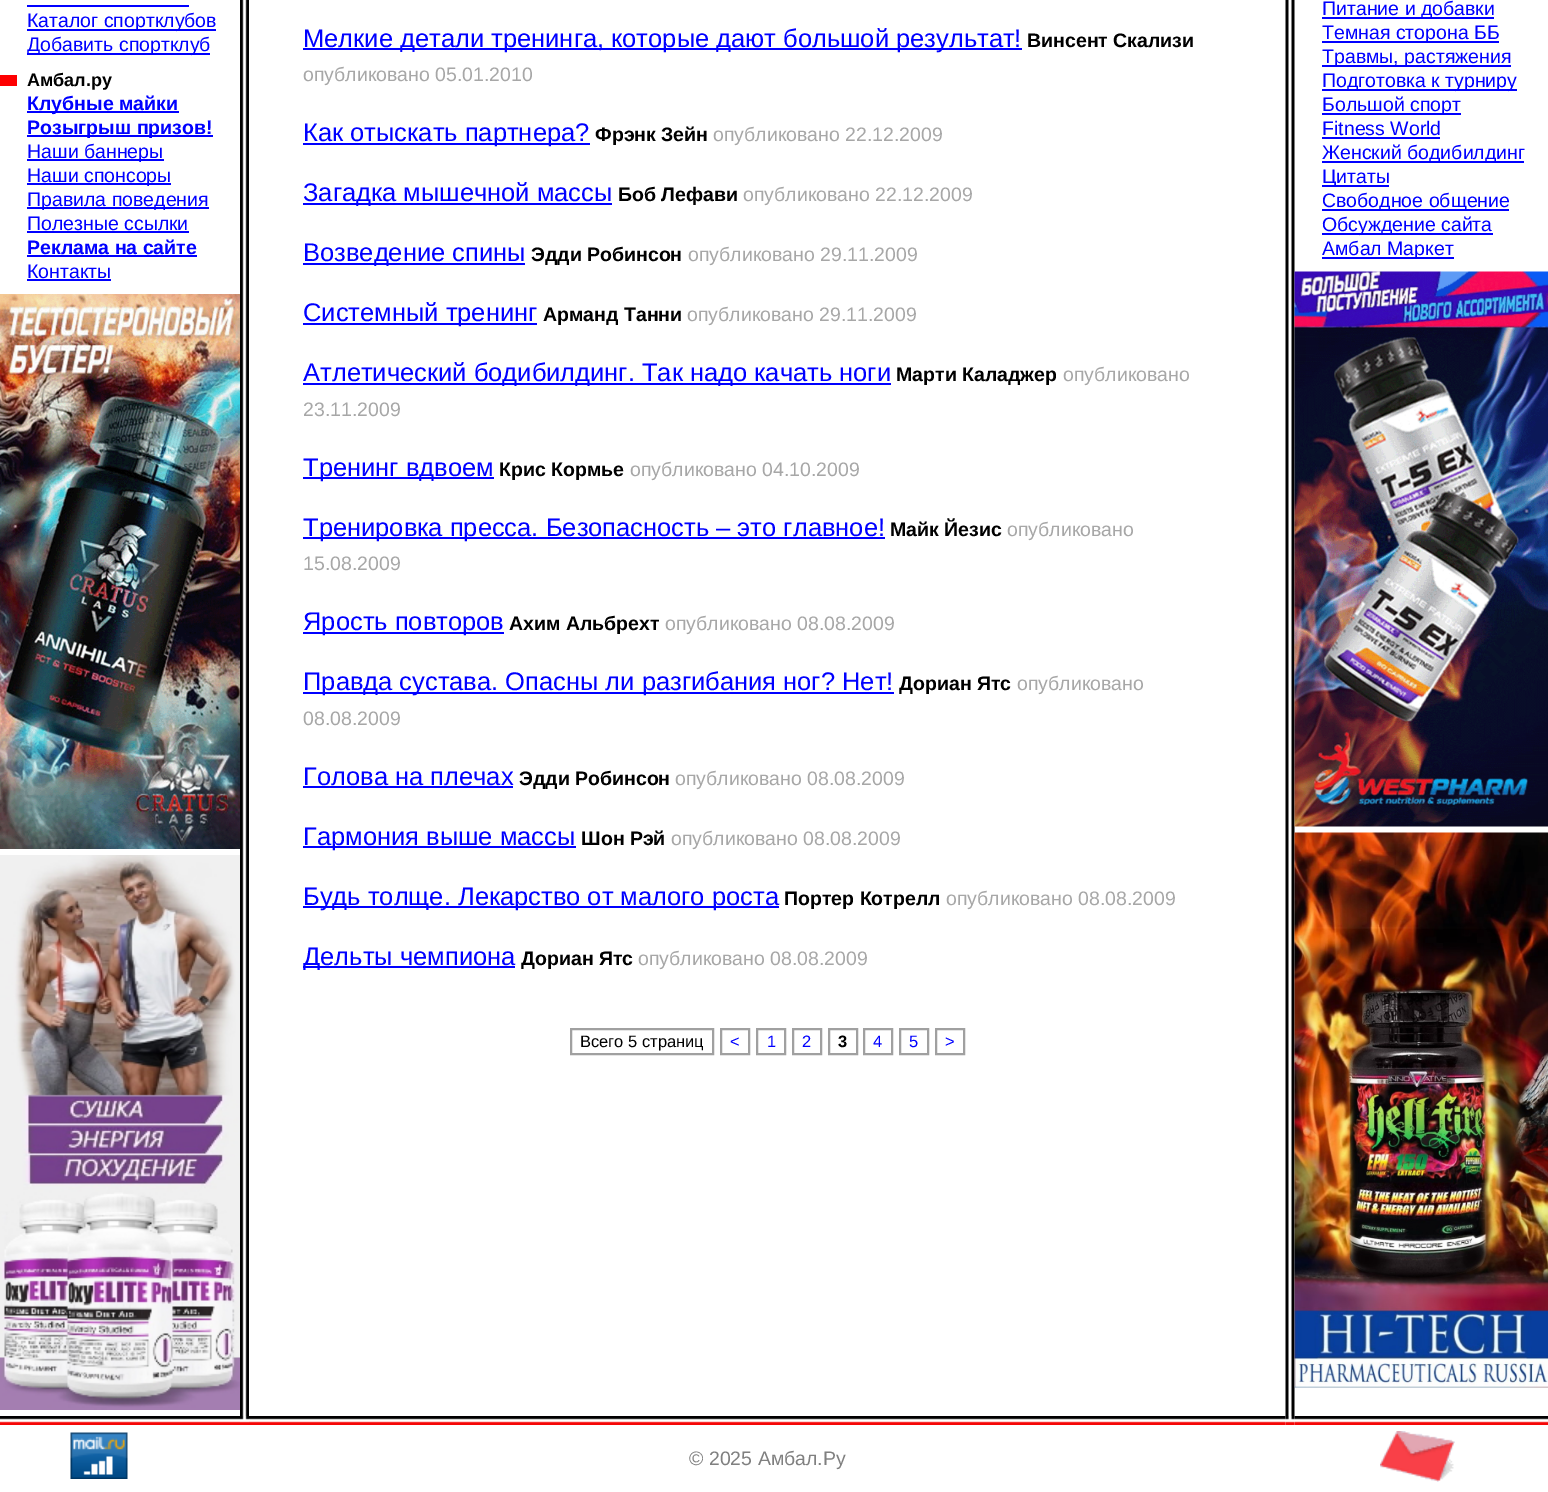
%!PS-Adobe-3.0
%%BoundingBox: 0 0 1548 1492
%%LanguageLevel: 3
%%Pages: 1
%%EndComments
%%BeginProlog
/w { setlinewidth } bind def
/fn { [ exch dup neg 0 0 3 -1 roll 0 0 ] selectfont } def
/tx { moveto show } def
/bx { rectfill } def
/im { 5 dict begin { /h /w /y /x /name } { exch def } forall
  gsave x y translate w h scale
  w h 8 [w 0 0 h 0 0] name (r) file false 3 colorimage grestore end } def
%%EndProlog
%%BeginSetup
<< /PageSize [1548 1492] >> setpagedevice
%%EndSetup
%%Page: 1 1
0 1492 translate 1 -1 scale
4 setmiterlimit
1 setgray
0 0 1548 1492 bx
0 0 1 setrgbcolor
27 5 162 2 bx
27 29 189 2 bx
/LiberationSans-Regular 19.5 fn
(Каталог спортклубов) 27 27 tx
27 53 183 2 bx
(Добавить спортклуб) 27 51 tx
0.996 0 0.004 setrgbcolor
0 75 17 11 bx
/LiberationSans-Bold 18 fn
0 setgray
(Амбал.ру) 27 86 tx
0 0 1 setrgbcolor
27 111 152 2 bx
/LiberationSans-Bold 19.5 fn
(Клубные майки) 27 110 tx
27 135 186 2 bx
(Розыгрыш призов!) 27 134 tx
27 159 137 2 bx
/LiberationSans-Regular 19.5 fn
(Наши баннеры) 27 158 tx
27 183 144 2 bx
(Наши спонсоры) 27 182 tx
27 207 182 2 bx
(Правила поведения) 27 206 tx
(Полезные ссылки) 27 230 tx
27 231 162 2 bx
/LiberationSans-Bold 19.5 fn
(Реклама на сайте) 27 254 tx
27 255 170 2 bx
/LiberationSans-Regular 19.5 fn
(Контакты) 27 278 tx
27 279 84 2 bx
(image0.raw) 0 294 240 555 im
(image1.raw) 0 855 240 555 im
(image2.raw) 240 0 9 1416 im
303 48 719 2 bx
/LiberationSans-Regular 25.5 fn
(Мелкие детали тренинга, которые дают большой результат!) 303 47 tx
/LiberationSans-Bold 19.5 fn
0 setgray
(Винсент Скализи) 1027 47 tx
/LiberationSans-Regular 19.5 fn
0.655 setgray
(опубликовано 05.01.2010) 303 81 tx
0 0 1 setrgbcolor
303 143 287 2 bx
/LiberationSans-Regular 25.5 fn
(Как отыскать партнера?) 303 141 tx
/LiberationSans-Bold 19.5 fn
0 setgray
(Фрэнк Зейн) 595 141 tx
/LiberationSans-Regular 19.5 fn
0.655 setgray
(опубликовано 22.12.2009) 713 141 tx
0 0 1 setrgbcolor
303 203 309 2 bx
/LiberationSans-Regular 25.5 fn
(Загадка мышечной массы) 303 201 tx
/LiberationSans-Bold 19.5 fn
0 setgray
(Боб Лефави) 618 201 tx
/LiberationSans-Regular 19.5 fn
0.655 setgray
(опубликовано 22.12.2009) 743 201 tx
0 0 1 setrgbcolor
303 263 222 2 bx
/LiberationSans-Regular 25.5 fn
(Возведение спины) 303 261 tx
/LiberationSans-Bold 19.5 fn
0 setgray
(Эдди Робинсон) 531 261 tx
/LiberationSans-Regular 19.5 fn
0.655 setgray
(опубликовано 29.11.2009) 688 261 tx
0 0 1 setrgbcolor
303 323 234 2 bx
/LiberationSans-Regular 25.5 fn
(Системный тренинг) 303 321 tx
/LiberationSans-Bold 19.5 fn
0 setgray
(Арманд Танни) 543 321 tx
/LiberationSans-Regular 19.5 fn
0.655 setgray
(опубликовано 29.11.2009) 687 321 tx
0 0 1 setrgbcolor
303 383 588 2 bx
/LiberationSans-Regular 25.5 fn
(Атлетический бодибилдинг. Так надо качать ноги) 303 381 tx
/LiberationSans-Bold 19.5 fn
0 setgray
(Марти Каладжер) 896 381 tx
/LiberationSans-Regular 19.5 fn
0.655 setgray
(опубликовано) 1063 381 tx
(23.11.2009) 303 416 tx
0 0 1 setrgbcolor
303 477 191 2 bx
/LiberationSans-Regular 25.5 fn
(Тренинг вдвоем) 303 476 tx
/LiberationSans-Bold 19.5 fn
0 setgray
(Крис Кормье) 499 476 tx
/LiberationSans-Regular 19.5 fn
0.655 setgray
(опубликовано 04.10.2009) 630 476 tx
0 0 1 setrgbcolor
303 537 582 2 bx
/LiberationSans-Regular 25.5 fn
(Тренировка пресса. Безопасность – это главное!) 303 536 tx
/LiberationSans-Bold 19.5 fn
0 setgray
(Майк Йезис) 890 536 tx
/LiberationSans-Regular 19.5 fn
0.655 setgray
(опубликовано) 1007 536 tx
(15.08.2009) 303 570 tx
0 0 1 setrgbcolor
303 632 201 2 bx
/LiberationSans-Regular 25.5 fn
(Ярость повторов) 303 630 tx
/LiberationSans-Bold 19.5 fn
0 setgray
(Ахим Альбрехт) 509 630 tx
/LiberationSans-Regular 19.5 fn
0.655 setgray
(опубликовано 08.08.2009) 665 630 tx
0 0 1 setrgbcolor
303 692 591 2 bx
/LiberationSans-Regular 25.5 fn
(Правда сустава. Опасны ли разгибания ног? Нет!) 303 690 tx
/LiberationSans-Bold 19.5 fn
0 setgray
(Дориан Ятс) 899 690 tx
/LiberationSans-Regular 19.5 fn
0.655 setgray
(опубликовано) 1017 690 tx
(08.08.2009) 303 725 tx
/LiberationSans-Regular 25.5 fn
0 0 1 setrgbcolor
(Голова на плечах) 303 785 tx
303 786 210 2 bx
/LiberationSans-Bold 19.5 fn
0 setgray
(Эдди Робинсон) 519 785 tx
/LiberationSans-Regular 19.5 fn
0.655 setgray
(опубликовано 08.08.2009) 675 785 tx
0 0 1 setrgbcolor
303 846 273 2 bx
/LiberationSans-Regular 25.5 fn
(Гармония выше массы) 303 845 tx
/LiberationSans-Bold 19.5 fn
0 setgray
(Шон Рэй) 581 845 tx
/LiberationSans-Regular 19.5 fn
0.655 setgray
(опубликовано 08.08.2009) 671 845 tx
0 0 1 setrgbcolor
303 906 476 2 bx
/LiberationSans-Regular 25.5 fn
(Будь толще. Лекарство от малого роста) 303 905 tx
/LiberationSans-Bold 19.5 fn
0 setgray
(Портер Котрелл) 784 905 tx
/LiberationSans-Regular 19.5 fn
0.655 setgray
(опубликовано 08.08.2009) 946 905 tx
0 0 1 setrgbcolor
303 966 212 2 bx
/LiberationSans-Regular 25.5 fn
(Дельты чемпиона) 303 965 tx
/LiberationSans-Bold 19.5 fn
0 setgray
(Дориан Ятс) 521 965 tx
/LiberationSans-Regular 19.5 fn
0.655 setgray
(опубликовано 08.08.2009) 638 965 tx
0.627 setgray
2 w
571 1029 142 25 rectstroke
/LiberationSans-Regular 16.5 fn
0 setgray
(Всего 5 страниц) 580 1047 tx
0.627 setgray
721 1029 28 25 rectstroke
0 0 1 setrgbcolor
(<) 730 1047 tx
0.627 setgray
757 1029 28 25 rectstroke
0 0 1 setrgbcolor
(1) 767 1047 tx
0.627 setgray
793 1029 28 25 rectstroke
0 0 1 setrgbcolor
(2) 802 1047 tx
0.627 setgray
829 1029 28 25 rectstroke
/LiberationSans-Bold 16.5 fn
0 setgray
(3) 838 1047 tx
0.627 setgray
864 1029 28 25 rectstroke
/LiberationSans-Regular 16.5 fn
0 0 1 setrgbcolor
(4) 873 1047 tx
0.627 setgray
900 1029 28 25 rectstroke
0 0 1 setrgbcolor
(5) 909 1047 tx
0.627 setgray
936 1029 28 25 rectstroke
0 0 1 setrgbcolor
(>) 945 1047 tx
(image3.raw) 1285 0 10 1416 im
1322 17 172 2 bx
/LiberationSans-Regular 19.5 fn
(Питание и добавки) 1322 15 tx
1322 41 177 2 bx
(Темная сторона ББ) 1322 39 tx
1322 65 189 2 bx
(Травмы, растяжения) 1322 63 tx
1322 89 195 2 bx
(Подготовка к турниру) 1322 87 tx
1322 113 139 2 bx
(Большой спорт) 1322 111 tx
(Fitness World) 1322 135 tx
1322 137 118 2 bx
1322 161 202 2 bx
(Женский бодибилдинг) 1322 159 tx
1322 185 67 2 bx
(Цитаты) 1322 183 tx
1322 209 187 2 bx
(Свободное общение) 1322 207 tx
1322 233 171 2 bx
(Обсуждение сайта) 1322 231 tx
1322 257 132 2 bx
(Амбал Маркет) 1322 255 tx
(image4.raw) 1294 271 254 556 im
(image5.raw) 1294 832 254 556 im
(image6.raw) 0 1416 240 9 im
(image7.raw) 240 1416 9 9 im
(image8.raw) 249 1416 1037 9 im
(image10.raw) 1294 1416 254 9 im
(image9.raw) 1285 1416 10 9 im
(image11.raw) 70 1432 58 47 im
0.502 setgray
(© 2025 Амбал.Ру) 689 1465 tx
(image12.raw) 1380 1431 75 51 im
showpage
%%EOF
